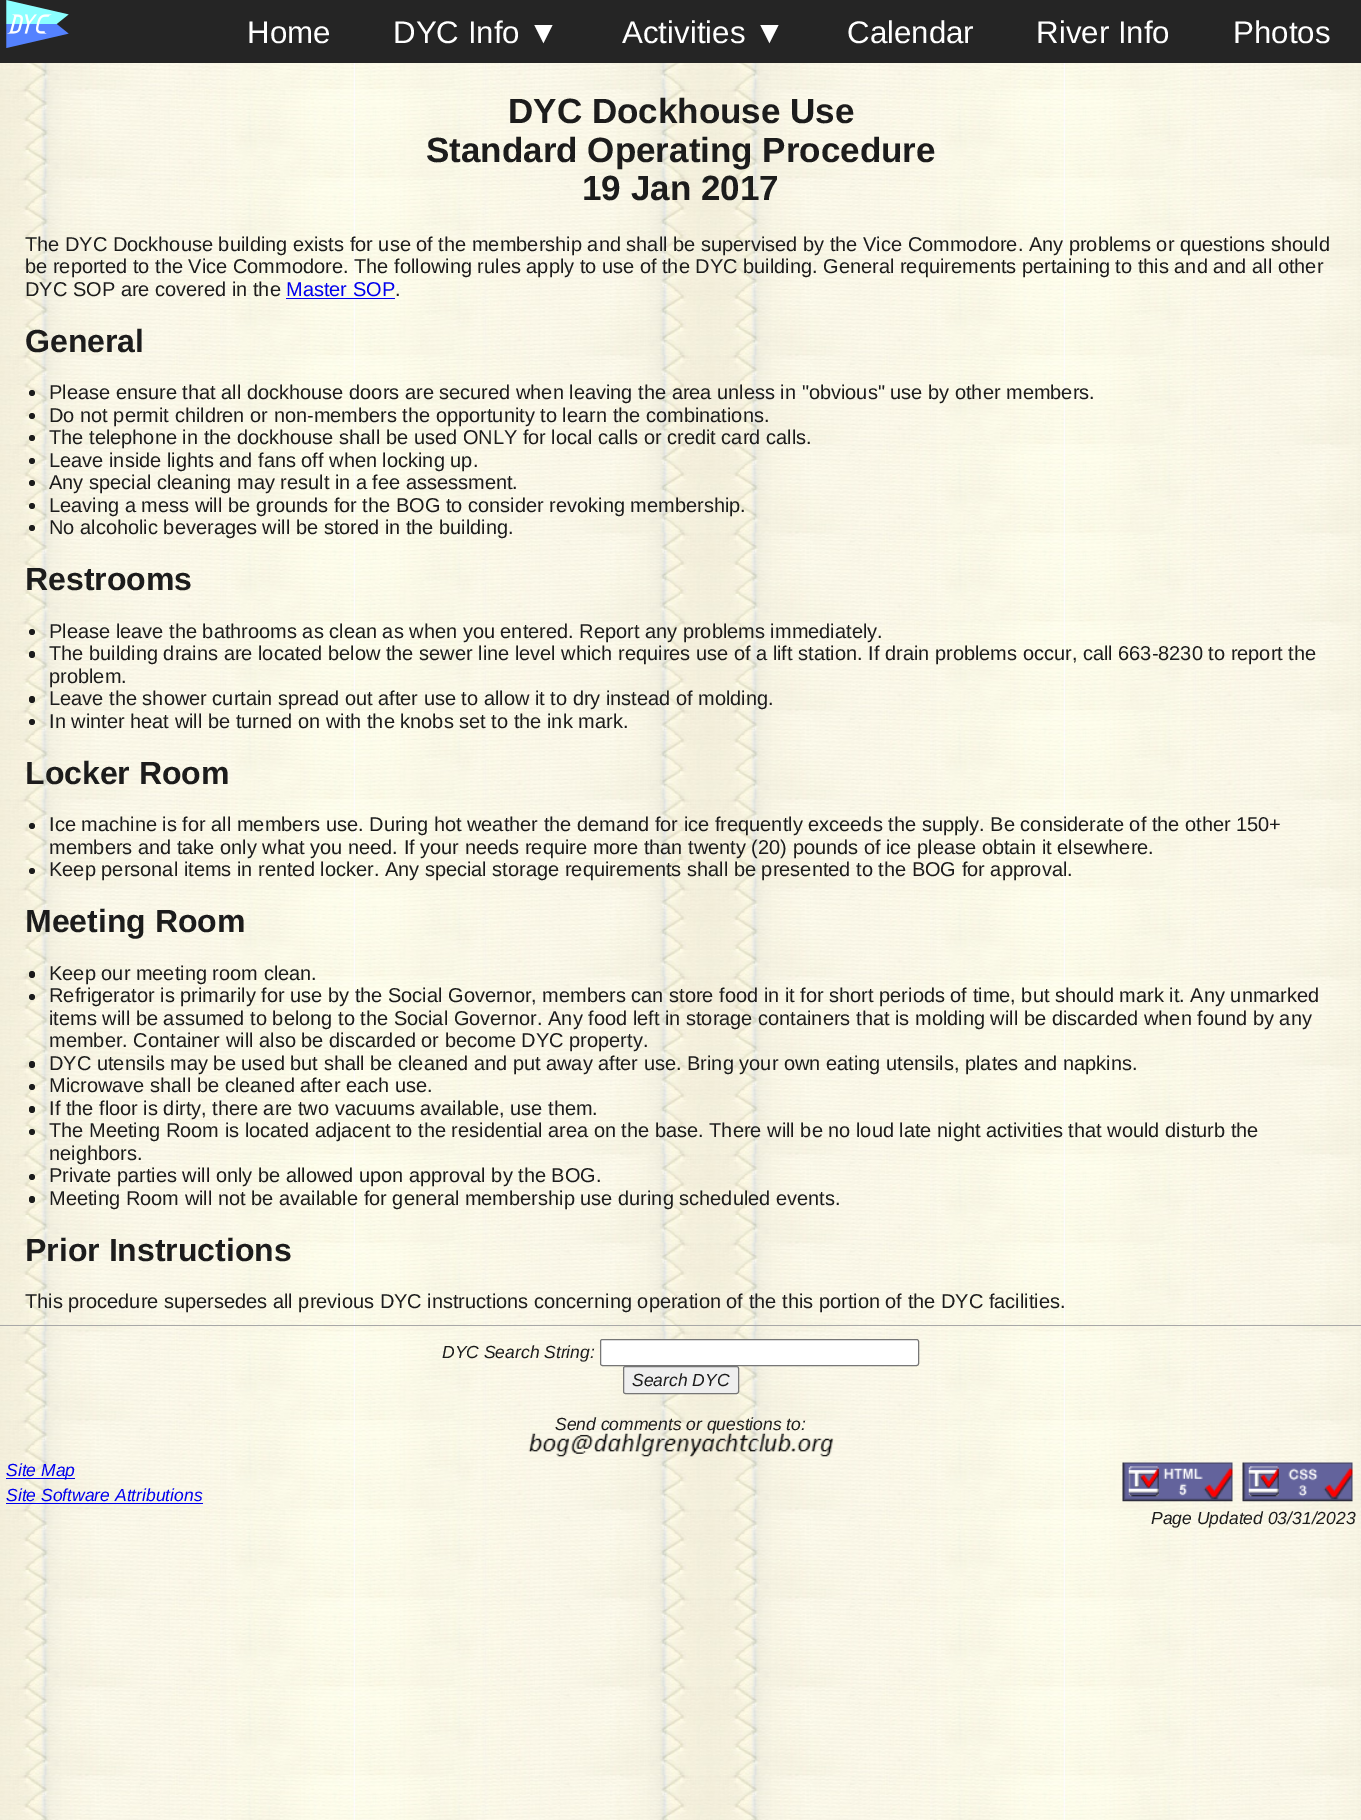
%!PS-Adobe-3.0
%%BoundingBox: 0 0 1361 1820
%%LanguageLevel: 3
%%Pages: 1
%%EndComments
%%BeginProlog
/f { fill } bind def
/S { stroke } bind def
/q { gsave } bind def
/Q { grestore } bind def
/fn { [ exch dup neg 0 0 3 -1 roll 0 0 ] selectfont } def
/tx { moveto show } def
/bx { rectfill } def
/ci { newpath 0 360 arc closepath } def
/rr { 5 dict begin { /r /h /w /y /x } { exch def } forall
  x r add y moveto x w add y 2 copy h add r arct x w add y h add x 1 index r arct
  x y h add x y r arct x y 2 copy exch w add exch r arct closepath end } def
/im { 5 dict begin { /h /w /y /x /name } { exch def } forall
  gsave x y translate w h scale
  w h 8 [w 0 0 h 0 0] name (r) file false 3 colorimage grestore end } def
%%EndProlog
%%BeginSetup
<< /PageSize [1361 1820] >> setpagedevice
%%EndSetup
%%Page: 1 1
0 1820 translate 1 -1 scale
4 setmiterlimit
1 setgray
0 0 1361 1820 bx
(image0.raw) 0 63 1361 1757 im
0.145 setgray
0 0 1361 63 bx
(image1.raw) 6 0 63 48 im
/LiberationSans-Regular 31.25 fn
1 setgray
(Home) 247 43 tx
(DYC Info ▼) 393 43 tx
(Activities ▼) 622 43 tx
(Calendar) 847 43 tx
(River Info) 1036 43 tx
(Photos) 1233 43 tx
0.659 setgray
0 1325 1361 1 bx
/LiberationSans-Bold 35 fn
0.11 setgray
(DYC Dockhouse Use) 508 123 tx
(Standard Operating Procedure) 426 162 tx
(19 Jan 2017) 582 200 tx
/LiberationSans-Regular 20 fn
(The DYC Dockhouse building exists for use of the membership and shall be supervised by the Vice Commodore. Any problems or questions should) 25 251 tx
(be reported to the Vice Commodore. The following rules apply to use of the DYC building. General requirements pertaining to this and and all other) 25 273 tx
(DYC SOP are covered in the) 25 296 tx
0 0 0.933 setrgbcolor
(Master SOP) 286 296 tx
286 298 109 1 bx
0.11 setgray
(.) 395 296 tx
/LiberationSans-Bold 32 fn
(General) 25 352 tx
32 393 3 ci f
/LiberationSans-Regular 20 fn
(Please ensure that all dockhouse doors are secured when leaving the area unless in "obvious" use by other members.) 49 399 tx
32 416 3 ci f
(Do not permit children or non-members the opportunity to learn the combinations.) 49 422 tx
32 438 3 ci f
(The telephone in the dockhouse shall be used ONLY for local calls or credit card calls.) 49 444 tx
32 461 3 ci f
(Leave inside lights and fans off when locking up.) 49 467 tx
32 483 3 ci f
(Any special cleaning may result in a fee assessment.) 49 489 tx
32 506 3 ci f
(Leaving a mess will be grounds for the BOG to consider revoking membership.) 49 512 tx
32 528 3 ci f
(No alcoholic beverages will be stored in the building.) 49 534 tx
/LiberationSans-Bold 32 fn
(Restrooms) 25 590 tx
32 632 3 ci f
/LiberationSans-Regular 20 fn
(Please leave the bathrooms as clean as when you entered. Report any problems immediately.) 49 638 tx
29 651 6 7 3 rr f
(The building drains are located below the sewer line level which requires use of a lift station. If drain problems occur, call 663-8230 to report the) 49 660 tx
(problem.) 49 683 tx
29 696 6 7 3 rr f
(Leave the shower curtain spread out after use to allow it to dry instead of molding.) 49 705 tx
32 722 3 ci f
(In winter heat will be turned on with the knobs set to the ink mark.) 49 728 tx
/LiberationSans-Bold 32 fn
(Locker Room) 25 784 tx
32 826 3 ci f
/LiberationSans-Regular 20 fn
(Ice machine is for all members use. During hot weather the demand for ice frequently exceeds the supply. Be considerate of the other 150+) 49 831 tx
(members and take only what you need. If your needs require more than twenty \(20\) pounds of ice please obtain it elsewhere.) 49 854 tx
32 871 3 ci f
(Keep personal items in rented locker. Any special storage requirements shall be presented to the BOG for approval.) 49 876 tx
/LiberationSans-Bold 32 fn
(Meeting Room) 25 932 tx
29 971 6 7 3 rr f
/LiberationSans-Regular 20 fn
(Keep our meeting room clean.) 49 980 tx
32 997 3 ci f
(Refrigerator is primarily for use by the Social Governor, members can store food in it for short periods of time, but should mark it. Any unmarked) 49 1002 tx
(items will be assumed to belong to the Social Governor. Any food left in storage containers that is molding will be discarded when found by any) 49 1025 tx
(member. Container will also be discarded or become DYC property.) 49 1047 tx
29 1061 6 7 3 rr f
(DYC utensils may be used but shall be cleaned and put away after use. Bring your own eating utensils, plates and napkins.) 49 1070 tx
32 1087 3 ci f
(Microwave shall be cleaned after each use.) 49 1092 tx
29 1106 6 7 3 rr f
(If the floor is dirty, there are two vacuums available, use them.) 49 1115 tx
32 1132 3 ci f
(The Meeting Room is located adjacent to the residential area on the base. There will be no loud late night activities that would disturb the) 49 1137 tx
(neighbors.) 49 1160 tx
32 1177 3 ci f
(Private parties will only be allowed upon approval by the BOG.) 49 1182 tx
29 1196 6 7 3 rr f
(Meeting Room will not be available for general membership use during scheduled events.) 49 1205 tx
/LiberationSans-Bold 32 fn
(Prior Instructions) 25 1261 tx
/LiberationSans-Regular 20 fn
(This procedure supersedes all previous DYC instructions concerning operation of the this portion of the DYC facilities.) 25 1308 tx
/LiberationSans-Italic 17.5 fn
(DYC Search String:) 442 1358 tx
1 setgray
600.5 1339.5 318 26 2 rr q f Q
0.463 setgray
S
0.937 setgray
623.5 1366.5 115 27 2 rr q f Q
0.463 setgray
S
0.11 setgray
(Search DYC) 632 1386 tx
(Send comments or questions to:) 555 1430 tx
(image2.raw) 528 1433 306 24 im
0 0 0.933 setrgbcolor
6 1478 69 1 bx
(Site Map) 6 1476 tx
(Site Software Attributions) 6 1501 tx
6 1503 197 1 bx
(image3.raw) 1122 1462 111 40 im
(image4.raw) 1242 1462 111 40 im
0.11 setgray
(Page Updated 03/31/2023) 1151 1524 tx
showpage
%%EOF
